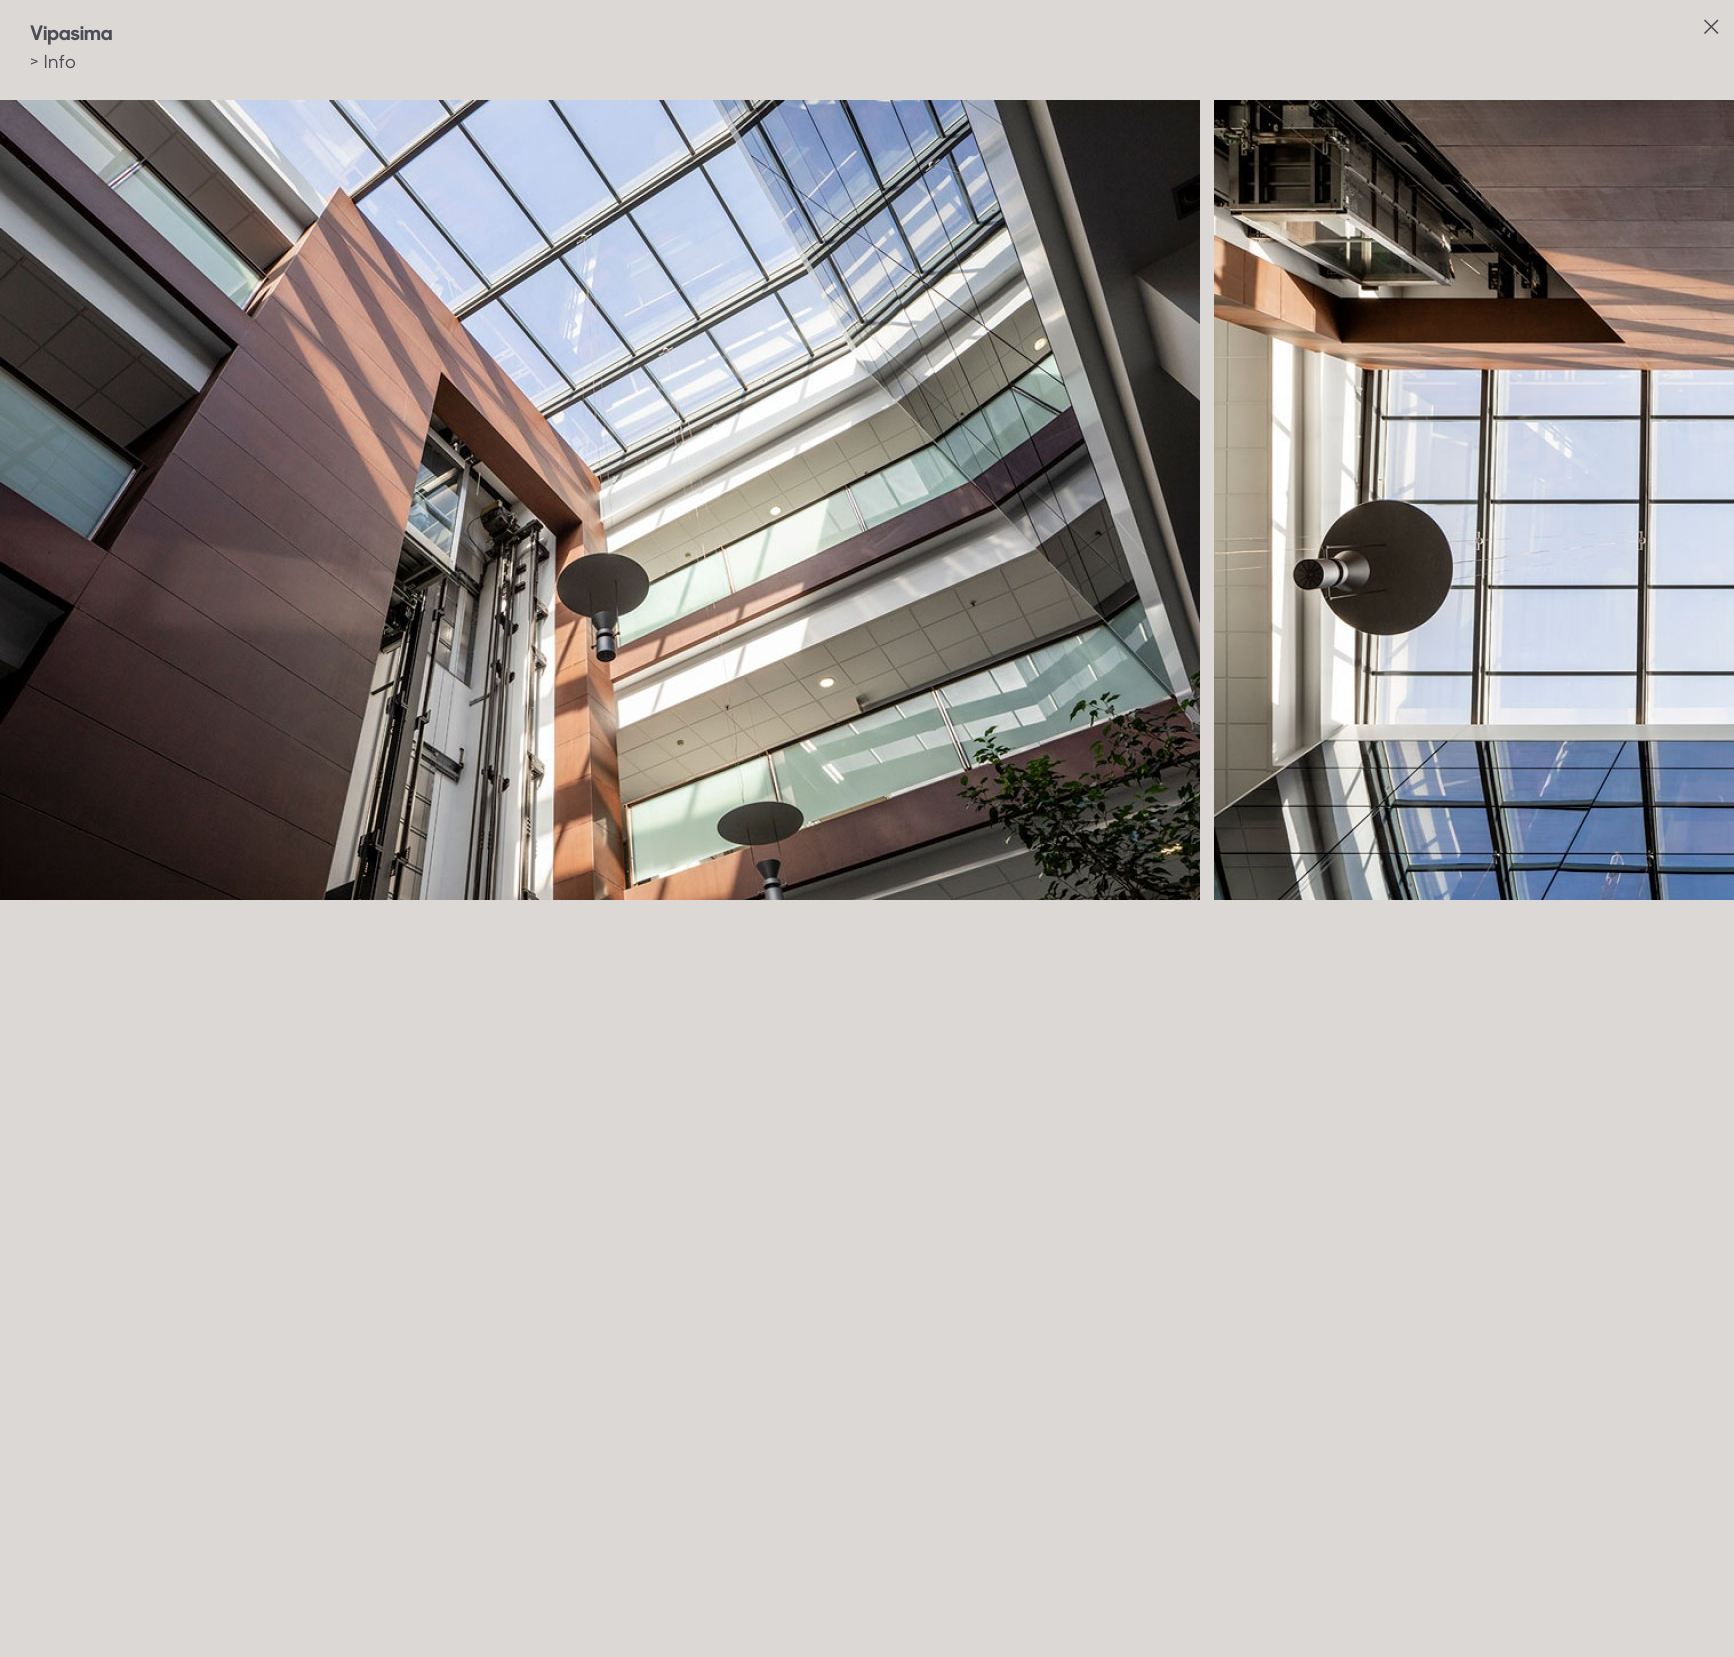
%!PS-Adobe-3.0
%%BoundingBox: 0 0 1734 1657
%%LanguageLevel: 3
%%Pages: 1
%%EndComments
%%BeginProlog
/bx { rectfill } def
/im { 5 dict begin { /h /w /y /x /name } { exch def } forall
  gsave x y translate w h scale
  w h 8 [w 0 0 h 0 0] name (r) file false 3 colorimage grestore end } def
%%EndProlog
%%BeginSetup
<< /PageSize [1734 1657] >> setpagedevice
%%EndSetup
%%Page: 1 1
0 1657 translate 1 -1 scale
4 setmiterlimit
0.863 0.847 0.839 setrgbcolor
0 0 1734 1657 bx
(image0.raw) 1704 19 15 15 im
(image1.raw) 30 25 82 20 im
(image2.raw) 30 58 8 7 im
(image3.raw) 44 54 32 15 im
(image4.raw) 0 100 1200 800 im
(image5.raw) 1214 100 520 800 im
showpage
%%EOF
